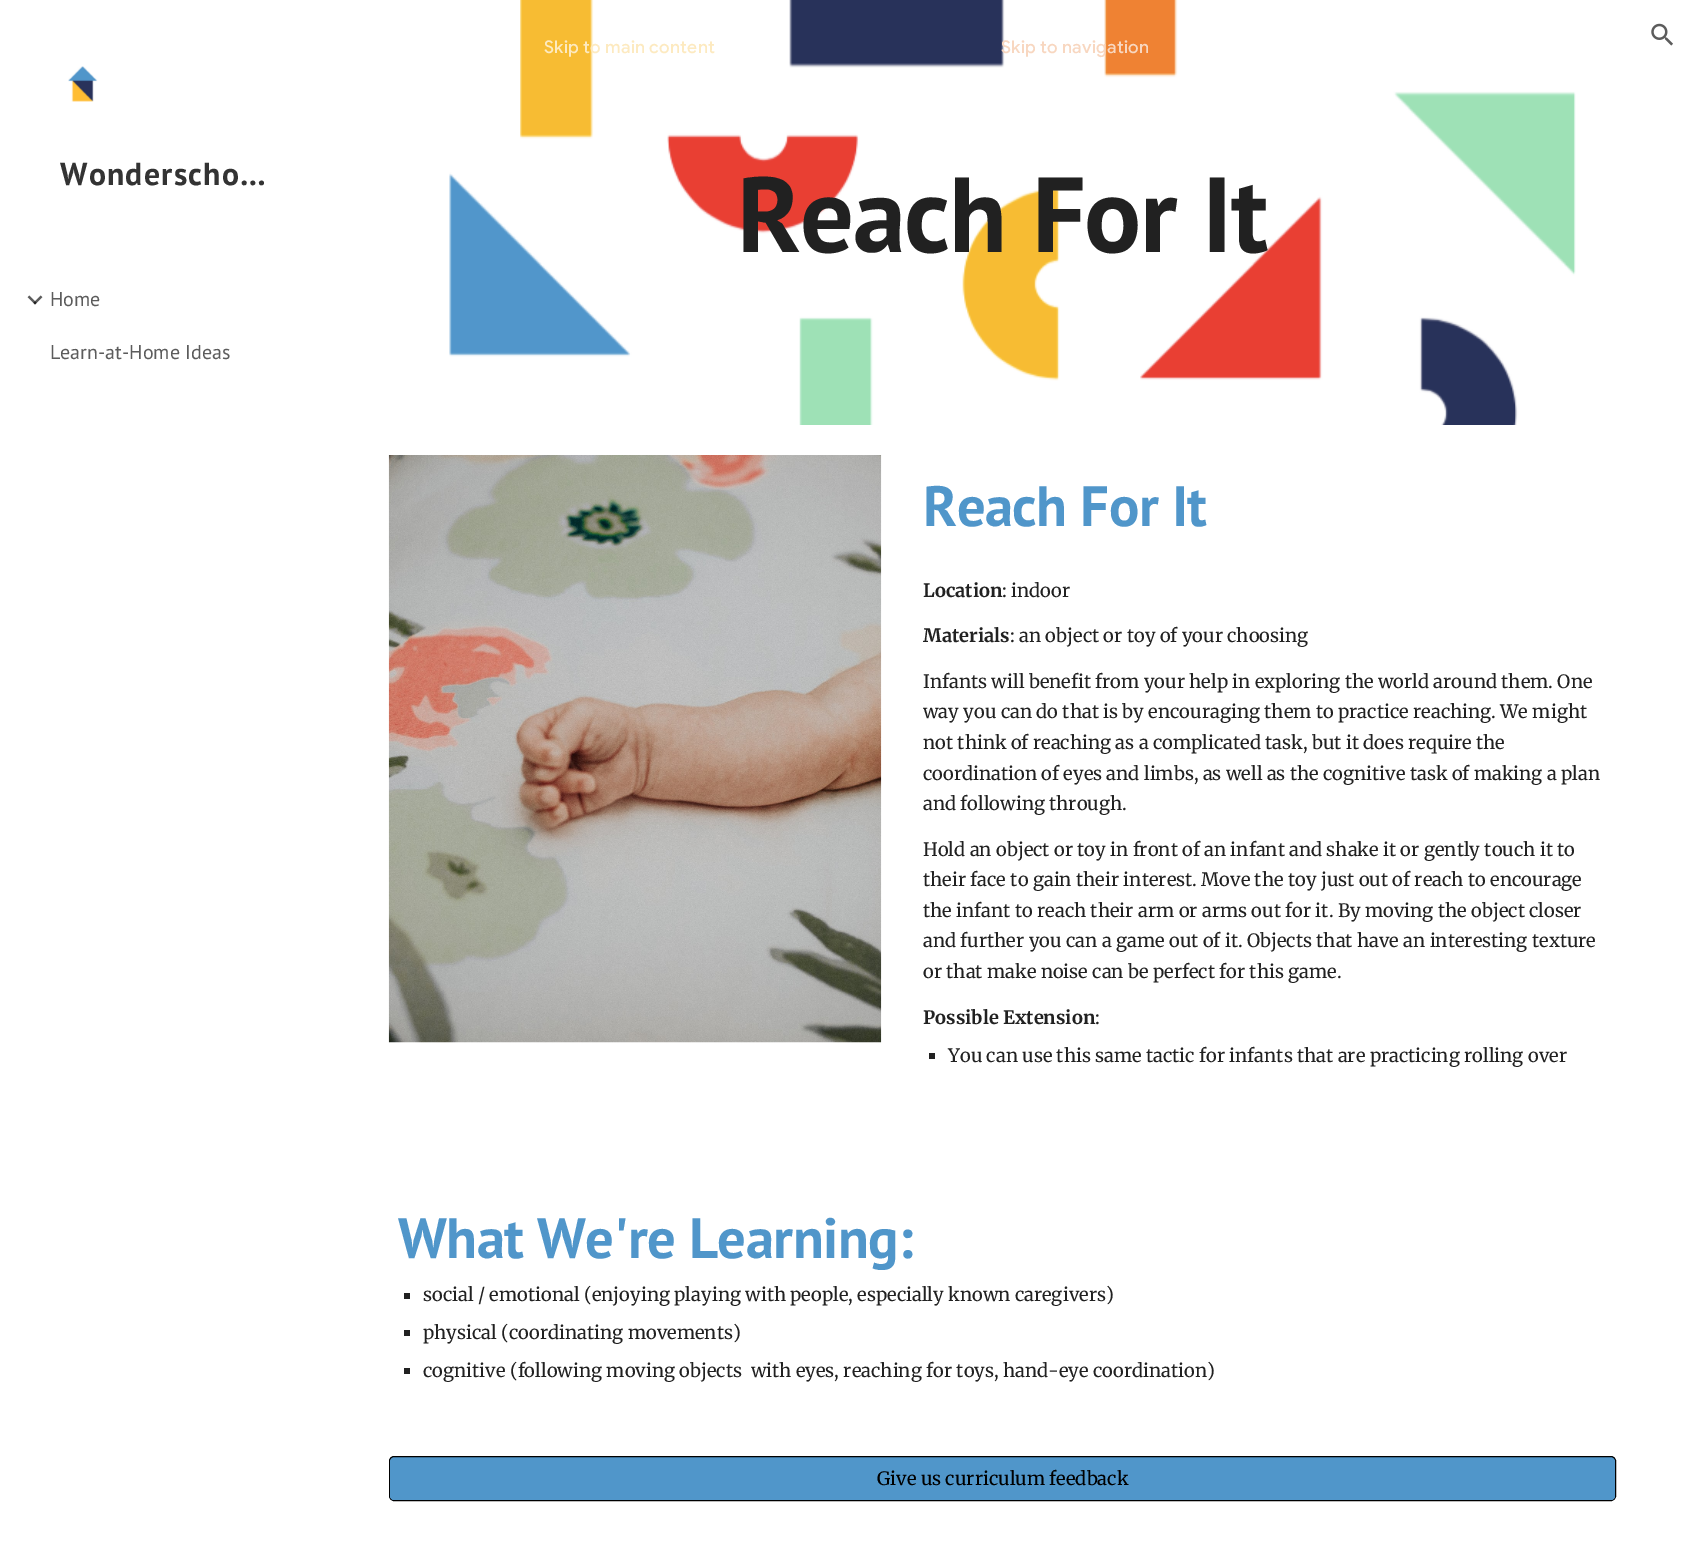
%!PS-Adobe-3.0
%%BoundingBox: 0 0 1692 1558
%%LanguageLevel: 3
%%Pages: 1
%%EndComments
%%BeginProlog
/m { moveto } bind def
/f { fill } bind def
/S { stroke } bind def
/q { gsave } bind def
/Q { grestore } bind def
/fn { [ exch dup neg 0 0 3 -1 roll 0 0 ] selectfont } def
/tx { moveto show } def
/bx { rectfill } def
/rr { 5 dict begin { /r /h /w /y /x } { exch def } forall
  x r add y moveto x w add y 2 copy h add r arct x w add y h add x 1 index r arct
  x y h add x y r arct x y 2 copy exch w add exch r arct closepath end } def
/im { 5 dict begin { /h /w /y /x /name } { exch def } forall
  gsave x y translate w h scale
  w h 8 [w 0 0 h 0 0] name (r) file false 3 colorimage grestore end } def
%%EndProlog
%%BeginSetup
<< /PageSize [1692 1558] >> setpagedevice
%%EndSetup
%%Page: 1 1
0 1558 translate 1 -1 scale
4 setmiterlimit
1 setgray
0 0 1692 1558 bx
(image3.raw) 313 0 1379 425 im
/GoogleSans-Medium 17.5 fn
0.992 0.918 0.753 setrgbcolor
544 53 m 0.2 0 (Skip to main content) ashow
0.973 0.843 0.753 setrgbcolor
1001 53 m 0.2 0 (Skip to navigation) ashow
(image0.raw) 1651 23 22 23 im
(image1.raw) 68 66 30 36 im
/PTSans-Bold 31.75 fn
0.2 setgray
60 185 m 1.25 0 (Wonderscho…) ashow
(image2.raw) 27 295 16 10 im
/PTSans-Regular 20 fn
0.361 setgray
(Home) 50 306 tx
(Learn-at-Home Ideas) 50 359 tx
/PTSans-Bold 106.5 fn
0.129 setgray
737 252 m -1.25 0 (Reach For It) ashow
(image4.raw) 388 455 494 588 im
/PTSans-Bold 56.75 fn
0.314 0.588 0.792 setrgbcolor
923 526 m -0.6 0 (Reach For It) ashow
/Merriweather-Bold 18.35 fn
0.129 setgray
(Location) 923 597 tx
/Merriweather-Regular 18.35 fn
(: indoor) 1002 597 tx
/Merriweather-Bold 18.35 fn
(Materials) 923 642 tx
/Merriweather-Regular 18.35 fn
(: an object or toy of your choosing) 1010 642 tx
(Infants will benefit from your help in exploring the world around them. One) 923 688 tx
(way you can do that is by encouraging them to practice reaching. We might) 923 718 tx
(not think of reaching as a complicated task, but it does require the) 923 749 tx
(coordination of eyes and limbs, as well as the cognitive task of making a plan) 923 780 tx
(and following through.) 923 810 tx
(Hold an object or toy in front of an infant and shake it or gently touch it to) 923 856 tx
(their face to gain their interest. Move the toy just out of reach to encourage) 923 886 tx
(the infant to reach their arm or arms out for it. By moving the object closer) 923 917 tx
(and further you can a game out of it. Objects that have an interesting texture) 923 947 tx
(or that make noise can be perfect for this game.) 923 978 tx
/Merriweather-Bold 18.35 fn
(Possible Extension) 923 1024 tx
/Merriweather-Regular 18.35 fn
(:) 1095 1024 tx
929 1053 6 6 bx
(You can use this same tactic for infants that are practicing rolling over) 948 1062 tx
/PTSans-Bold 56.75 fn
0.314 0.588 0.792 setrgbcolor
398 1258 m -0.6 0 (What We're Learning:) ashow
0.129 setgray
404 1293 6 6 bx
/Merriweather-Regular 18.35 fn
(social / emotional \(enjoying playing with people, especially known caregivers\)) 423 1301 tx
404 1330 6 6 bx
(physical \(coordinating movements\)) 423 1339 tx
404 1368 6 6 bx
(cognitive \(following moving objects  with eyes, reaching for toys, hand-eye coordination\)) 423 1377 tx
0.314 0.588 0.792 setrgbcolor
389.5 1456.5 1226 44 4.5 rr q f Q
0 setgray
S
0.314 0.588 0.792 setrgbcolor
390 1458 1225 42 4 rr f
0 setgray
(Give us curriculum feedback) 877 1485 tx
showpage
%%EOF
